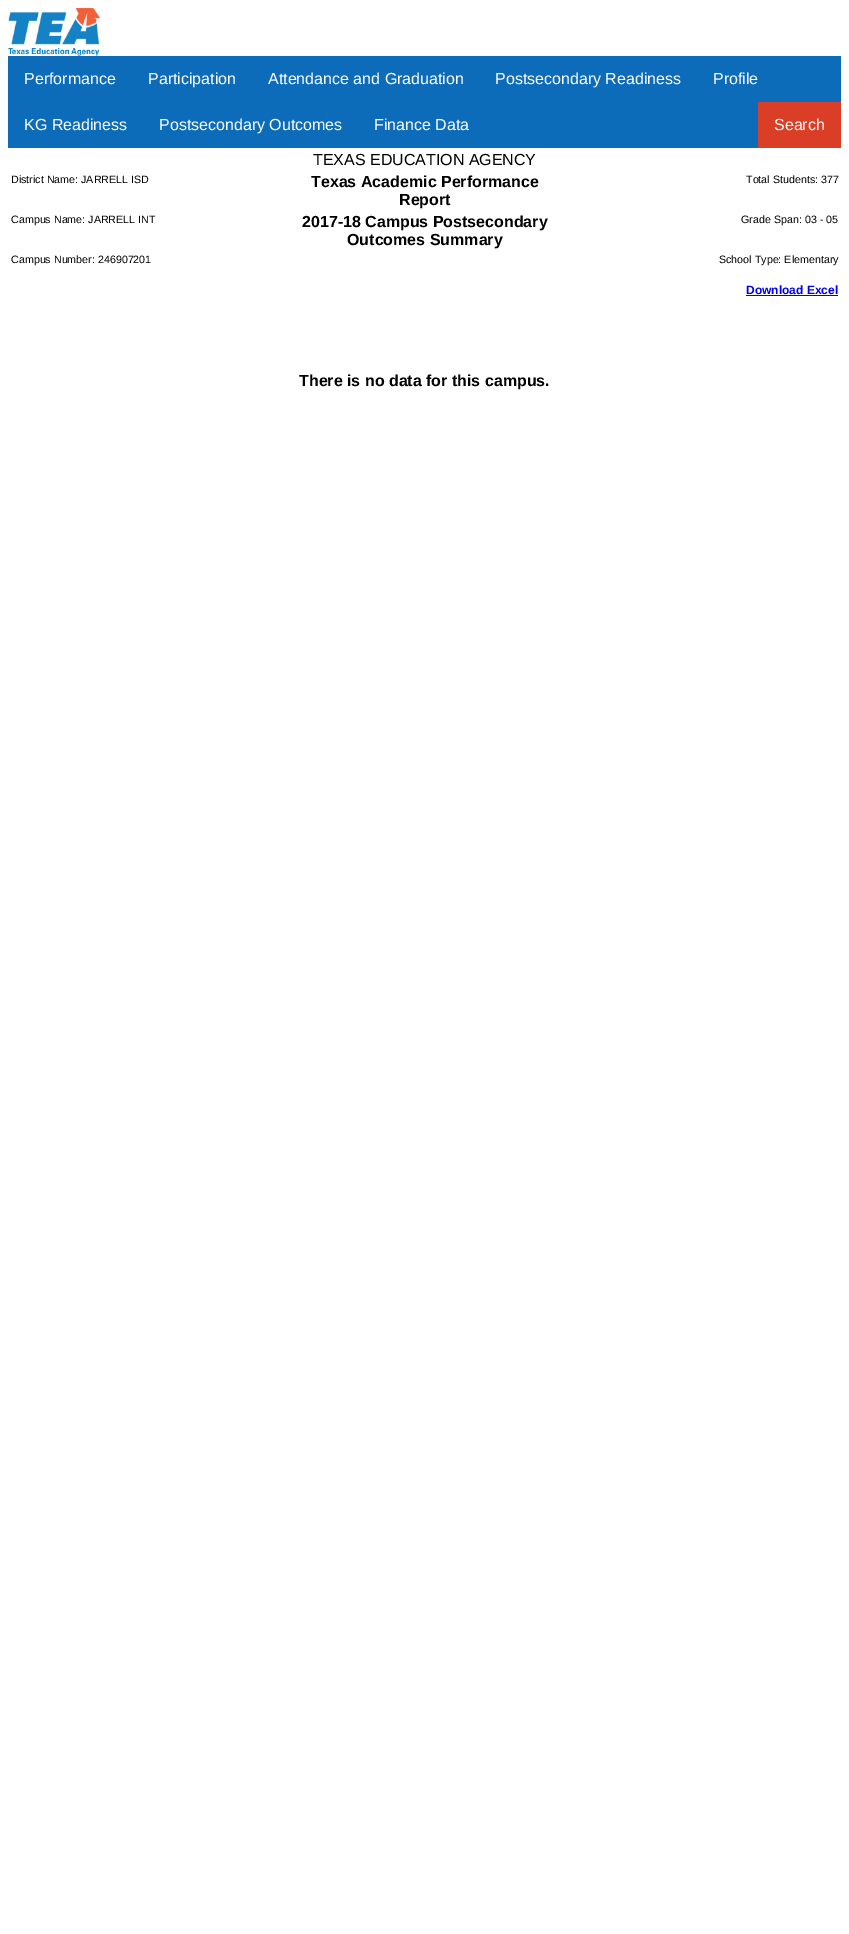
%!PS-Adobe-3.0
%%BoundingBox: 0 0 849 1934
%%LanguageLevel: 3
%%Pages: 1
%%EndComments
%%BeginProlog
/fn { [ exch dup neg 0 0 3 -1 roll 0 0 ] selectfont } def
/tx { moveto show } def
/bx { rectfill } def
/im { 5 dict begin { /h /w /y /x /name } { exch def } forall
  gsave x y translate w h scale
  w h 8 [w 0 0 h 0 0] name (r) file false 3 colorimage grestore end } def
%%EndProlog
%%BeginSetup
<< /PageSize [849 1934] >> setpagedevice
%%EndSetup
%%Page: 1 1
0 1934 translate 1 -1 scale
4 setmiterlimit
1 setgray
0 0 849 1934 bx
(image0.raw) 8 8 92 48 im
0.051 0.424 0.725 setrgbcolor
8 56 833 92 bx
/LiberationSans-Regular 16 fn
1 setgray
(Performance) 24 84 tx
(Participation) 148 84 tx
(Attendance and Graduation) 268 84 tx
(Postsecondary Readiness) 495 84 tx
(Profile) 713 84 tx
(KG Readiness) 24 130 tx
(Postsecondary Outcomes) 159 130 tx
(Finance Data) 374 130 tx
0.855 0.243 0.149 setrgbcolor
758 102 83 46 bx
1 setgray
(Search) 774 130 tx
0 setgray
(TEXAS EDUCATION AGENCY) 313 165 tx
/LiberationSans-Regular 10.7 fn
(District Name: JARRELL ISD) 11 183 tx
/LiberationSans-Bold 16 fn
(Texas Academic Performance) 311 187 tx
(Report) 399 205 tx
/LiberationSans-Regular 10.7 fn
(Total Students: 377) 746 183 tx
(Campus Name: JARRELL INT) 11 223 tx
/LiberationSans-Bold 16 fn
(2017-18 Campus Postsecondary) 302 227 tx
(Outcomes Summary) 347 245 tx
/LiberationSans-Regular 10.7 fn
(Grade Span: 03 - 05) 741 223 tx
(Campus Number: 246907201) 11 263 tx
(School Type: Elementary) 719 263 tx
/LiberationSans-Bold 12 fn
0 0 0.933 setrgbcolor
(Download Excel) 746 294 tx
746 295 92 1 bx
/LiberationSans-Bold 16 fn
0 setgray
(There is no data for this campus.) 299 386 tx
showpage
%%EOF
